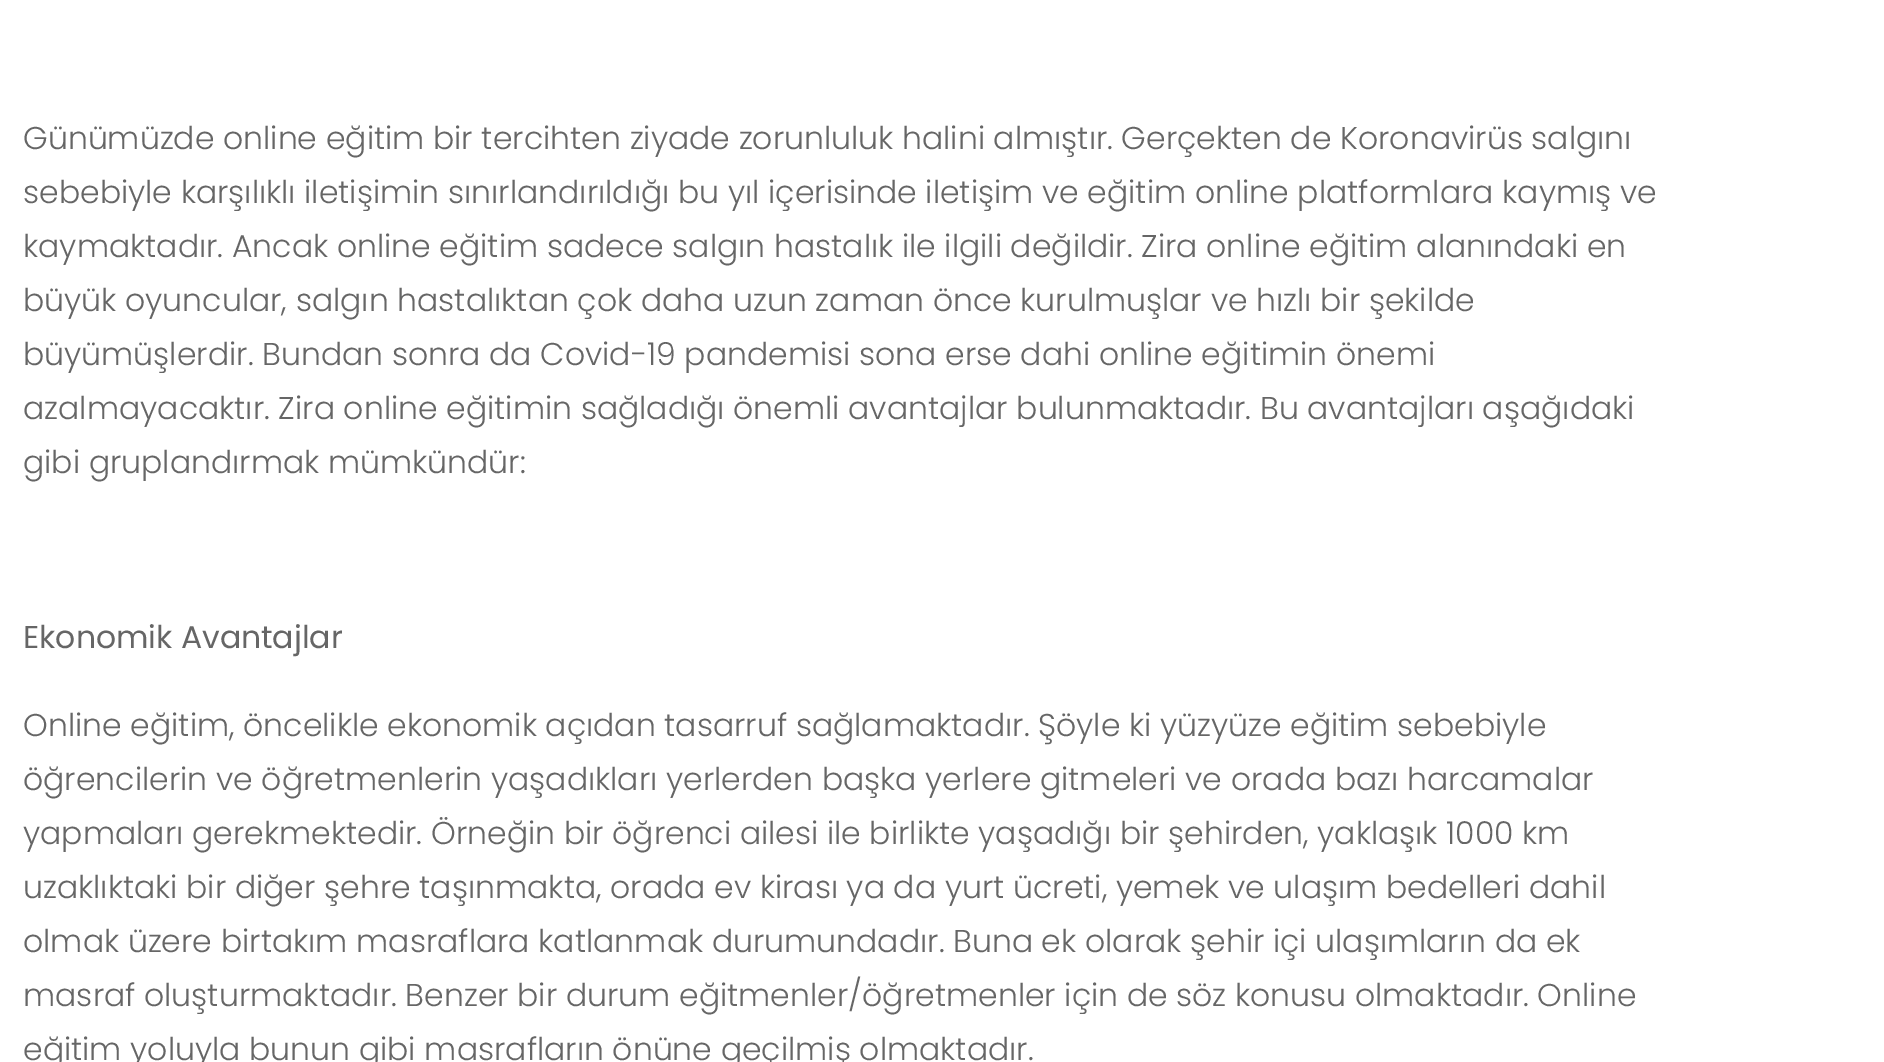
%!PS-Adobe-3.0
%%BoundingBox: 0 0 1884 1062
%%LanguageLevel: 3
%%Pages: 1
%%EndComments
%%BeginProlog
/fn { [ exch dup neg 0 0 3 -1 roll 0 0 ] selectfont } def
/tx { moveto show } def
/bx { rectfill } def
%%EndProlog
%%BeginSetup
<< /PageSize [1884 1062] >> setpagedevice
%%EndSetup
%%Page: 1 1
0 1062 translate 1 -1 scale
4 setmiterlimit
1 setgray
0 0 1884 1062 bx
/Poppins-Light 31.5 fn
0.4 setgray
(Günümüzde online eğitim bir tercihten ziyade zorunluluk halini almıştır. Gerçekten de Koronavirüs salgını) 23 149 tx
(sebebiyle karşılıklı iletişimin sınırlandırıldığı bu yıl içerisinde iletişim ve eğitim online platformlara kaymış ve) 23 203 tx
(kaymaktadır. Ancak online eğitim sadece salgın hastalık ile ilgili değildir. Zira online eğitim alanındaki en) 23 257 tx
(büyük oyuncular, salgın hastalıktan çok daha uzun zaman önce kurulmuşlar ve hızlı bir şekilde) 23 311 tx
(büyümüşlerdir. Bundan sonra da Covid-19 pandemisi sona erse dahi online eğitimin önemi) 23 365 tx
(azalmayacaktır. Zira online eğitimin sağladığı önemli avantajlar bulunmaktadır. Bu avantajları aşağıdaki) 23 419 tx
(gibi gruplandırmak mümkündür:) 23 473 tx
/Poppins-Regular 31.5 fn
(Ekonomik Avantajlar) 23 648 tx
/Poppins-Light 31.5 fn
(Online eğitim, öncelikle ekonomik açıdan tasarruf sağlamaktadır. Şöyle ki yüzyüze eğitim sebebiyle) 23 736 tx
(öğrencilerin ve öğretmenlerin yaşadıkları yerlerden başka yerlere gitmeleri ve orada bazı harcamalar) 23 790 tx
(yapmaları gerekmektedir. Örneğin bir öğrenci ailesi ile birlikte yaşadığı bir şehirden, yaklaşık 1000 km) 23 844 tx
(uzaklıktaki bir diğer şehre taşınmakta, orada ev kirası ya da yurt ücreti, yemek ve ulaşım bedelleri dahil) 23 898 tx
(olmak üzere birtakım masraflara katlanmak durumundadır. Buna ek olarak şehir içi ulaşımların da ek) 23 952 tx
(masraf oluşturmaktadır. Benzer bir durum eğitmenler/öğretmenler için de söz konusu olmaktadır. Online) 23 1006 tx
(eğitim yoluyla bunun gibi masrafların önüne geçilmiş olmaktadır.) 23 1060 tx
showpage
%%EOF
